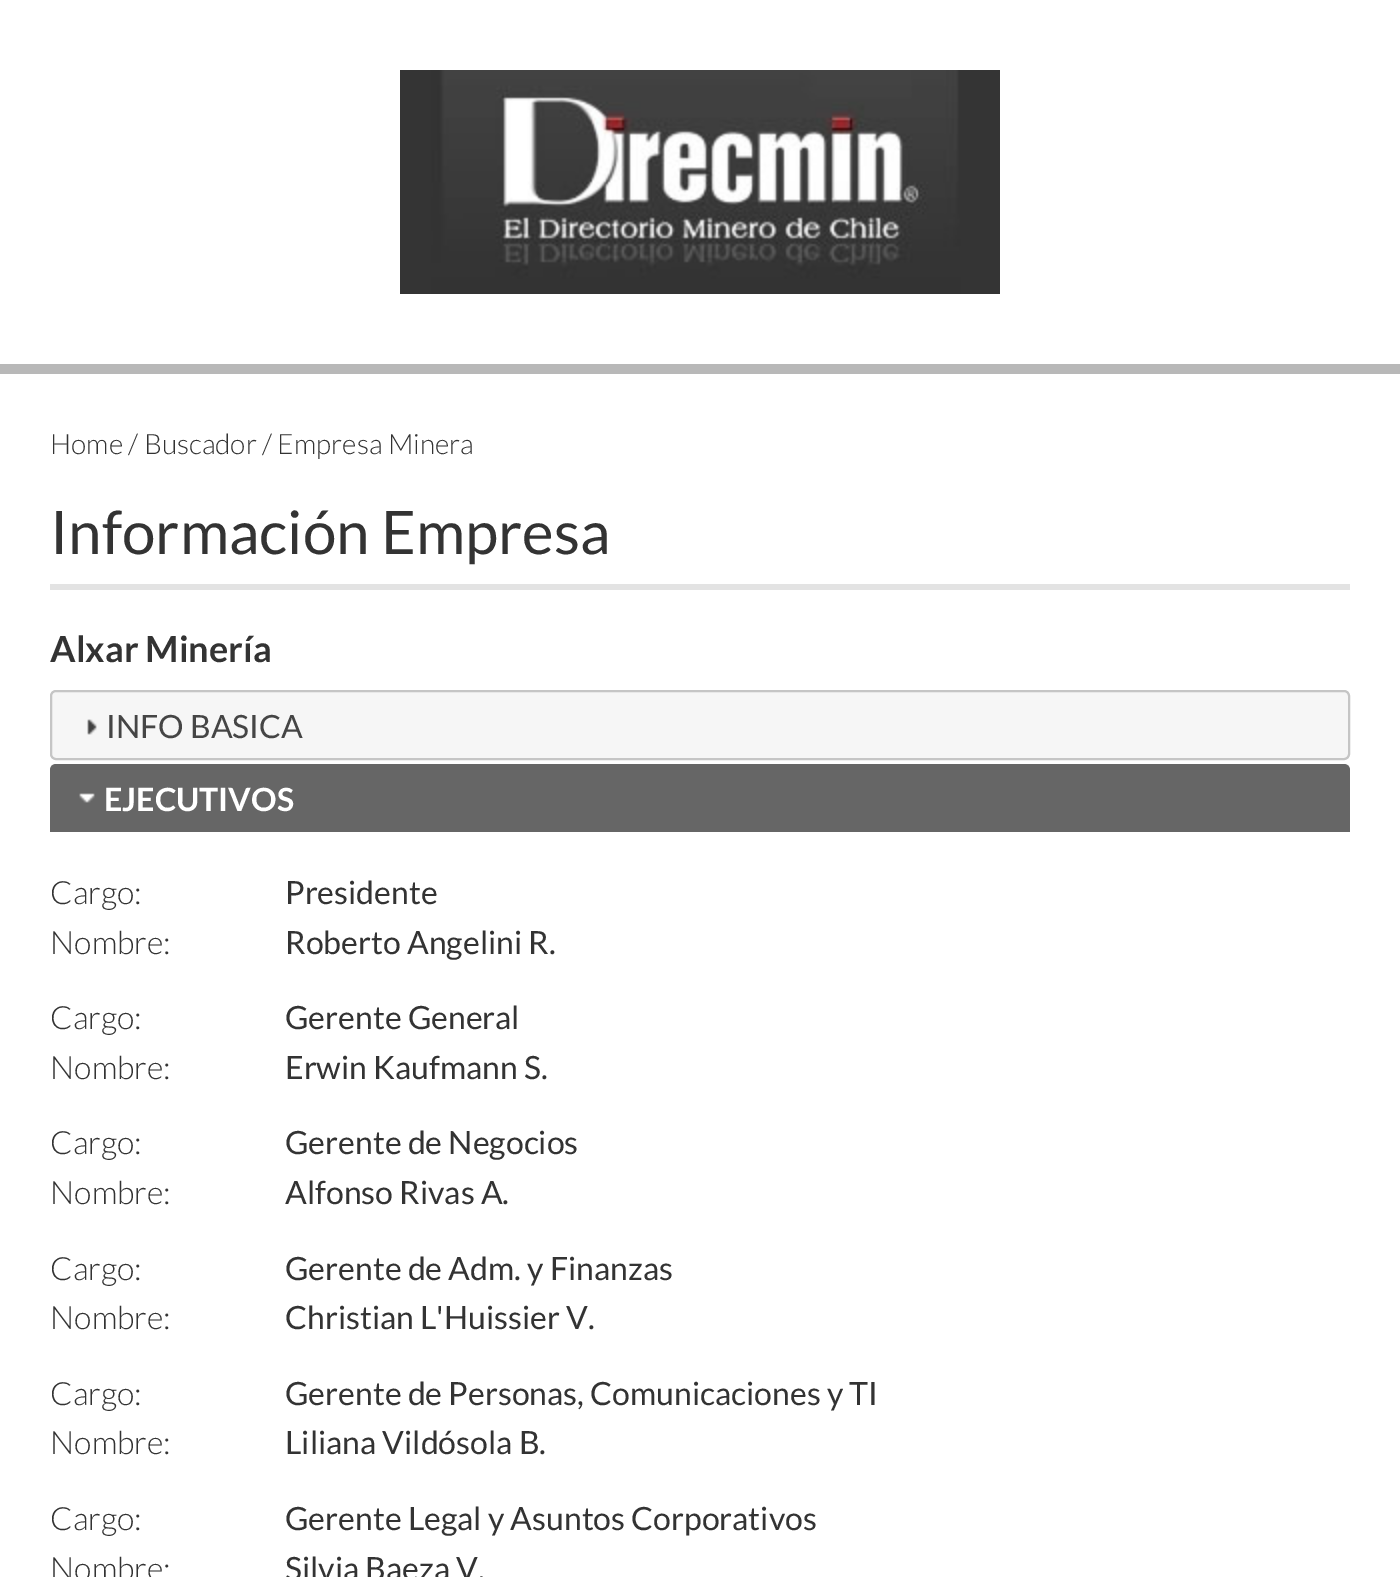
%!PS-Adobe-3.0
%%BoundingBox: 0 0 1400 1577
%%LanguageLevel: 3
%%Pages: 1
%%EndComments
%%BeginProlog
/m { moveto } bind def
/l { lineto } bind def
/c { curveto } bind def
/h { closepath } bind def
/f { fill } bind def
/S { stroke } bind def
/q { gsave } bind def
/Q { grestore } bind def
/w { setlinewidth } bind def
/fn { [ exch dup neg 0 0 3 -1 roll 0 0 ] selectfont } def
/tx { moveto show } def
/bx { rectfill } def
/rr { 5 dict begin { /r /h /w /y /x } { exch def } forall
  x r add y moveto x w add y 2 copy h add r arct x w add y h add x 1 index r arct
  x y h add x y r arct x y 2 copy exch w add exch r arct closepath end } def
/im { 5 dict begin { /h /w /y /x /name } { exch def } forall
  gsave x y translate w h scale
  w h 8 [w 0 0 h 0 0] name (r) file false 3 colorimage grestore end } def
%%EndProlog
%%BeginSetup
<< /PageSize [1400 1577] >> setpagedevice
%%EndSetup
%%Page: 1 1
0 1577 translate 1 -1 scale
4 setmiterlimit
1 setgray
0 0 1400 1577 bx
(image0.raw) 400 70 600 224 im
0.722 setgray
0 364 1400 10 bx
/Lato-Light 28 fn
0.2 setgray
(Home / Buscador / Empresa Minera) 50 454 tx
0.89 setgray
50 584 1300 6 bx
/Lato-Regular 60 fn
0.2 setgray
(Información Empresa) 50 554 tx
/Lato-Bold 36 fn
(Alxar Minería) 50 662 tx
0.965 setgray
51 691 1298 68 5 rr q f Q
0.773 setgray
2 w
S
(image1.raw) 87 719 10 16 im
/Lato-Regular 32 fn
0.271 setgray
(INFO BASICA) 106 738 tx
0.4 setgray
56 764 m 1344 764 l 1347.5 764 1350 766.5 1350 770 c 1350 832 l 50 832 l 50 770 l 50 766.5 52.5 764 56 764 c h f
(image2.raw) 79 793 16 10 im
/Lato-Bold 32 fn
1 setgray
(EJECUTIVOS) 104 811 tx
/Lato-Light 32 fn
0.2 setgray
(Cargo:) 50 904 tx
/Lato-Regular 32 fn
(Presidente) 285 904 tx
/Lato-Light 32 fn
(Nombre:) 50 954 tx
/Lato-Regular 32 fn
(Roberto Angelini R.) 285 954 tx
/Lato-Light 32 fn
(Cargo:) 50 1029 tx
/Lato-Regular 32 fn
(Gerente General) 285 1029 tx
/Lato-Light 32 fn
(Nombre:) 50 1079 tx
/Lato-Regular 32 fn
(Erwin Kaufmann S.) 285 1079 tx
/Lato-Light 32 fn
(Cargo:) 50 1154 tx
/Lato-Regular 32 fn
(Gerente de Negocios) 285 1154 tx
/Lato-Light 32 fn
(Nombre:) 50 1204 tx
/Lato-Regular 32 fn
(Alfonso Rivas A.) 285 1204 tx
/Lato-Light 32 fn
(Cargo:) 50 1280 tx
/Lato-Regular 32 fn
(Gerente de Adm. y Finanzas) 285 1280 tx
/Lato-Light 32 fn
(Nombre:) 50 1329 tx
/Lato-Regular 32 fn
(Christian L'Huissier V.) 285 1329 tx
/Lato-Light 32 fn
(Cargo:) 50 1405 tx
/Lato-Regular 32 fn
(Gerente de Personas, Comunicaciones y TI) 285 1405 tx
/Lato-Light 32 fn
(Nombre:) 50 1454 tx
/Lato-Regular 32 fn
(Liliana Vildósola B.) 285 1454 tx
/Lato-Light 32 fn
(Cargo:) 50 1530 tx
/Lato-Regular 32 fn
(Gerente Legal y Asuntos Corporativos) 285 1530 tx
/Lato-Light 32 fn
(Nombre:) 50 1580 tx
/Lato-Regular 32 fn
(Silvia Baeza V.) 285 1580 tx
showpage
%%EOF
